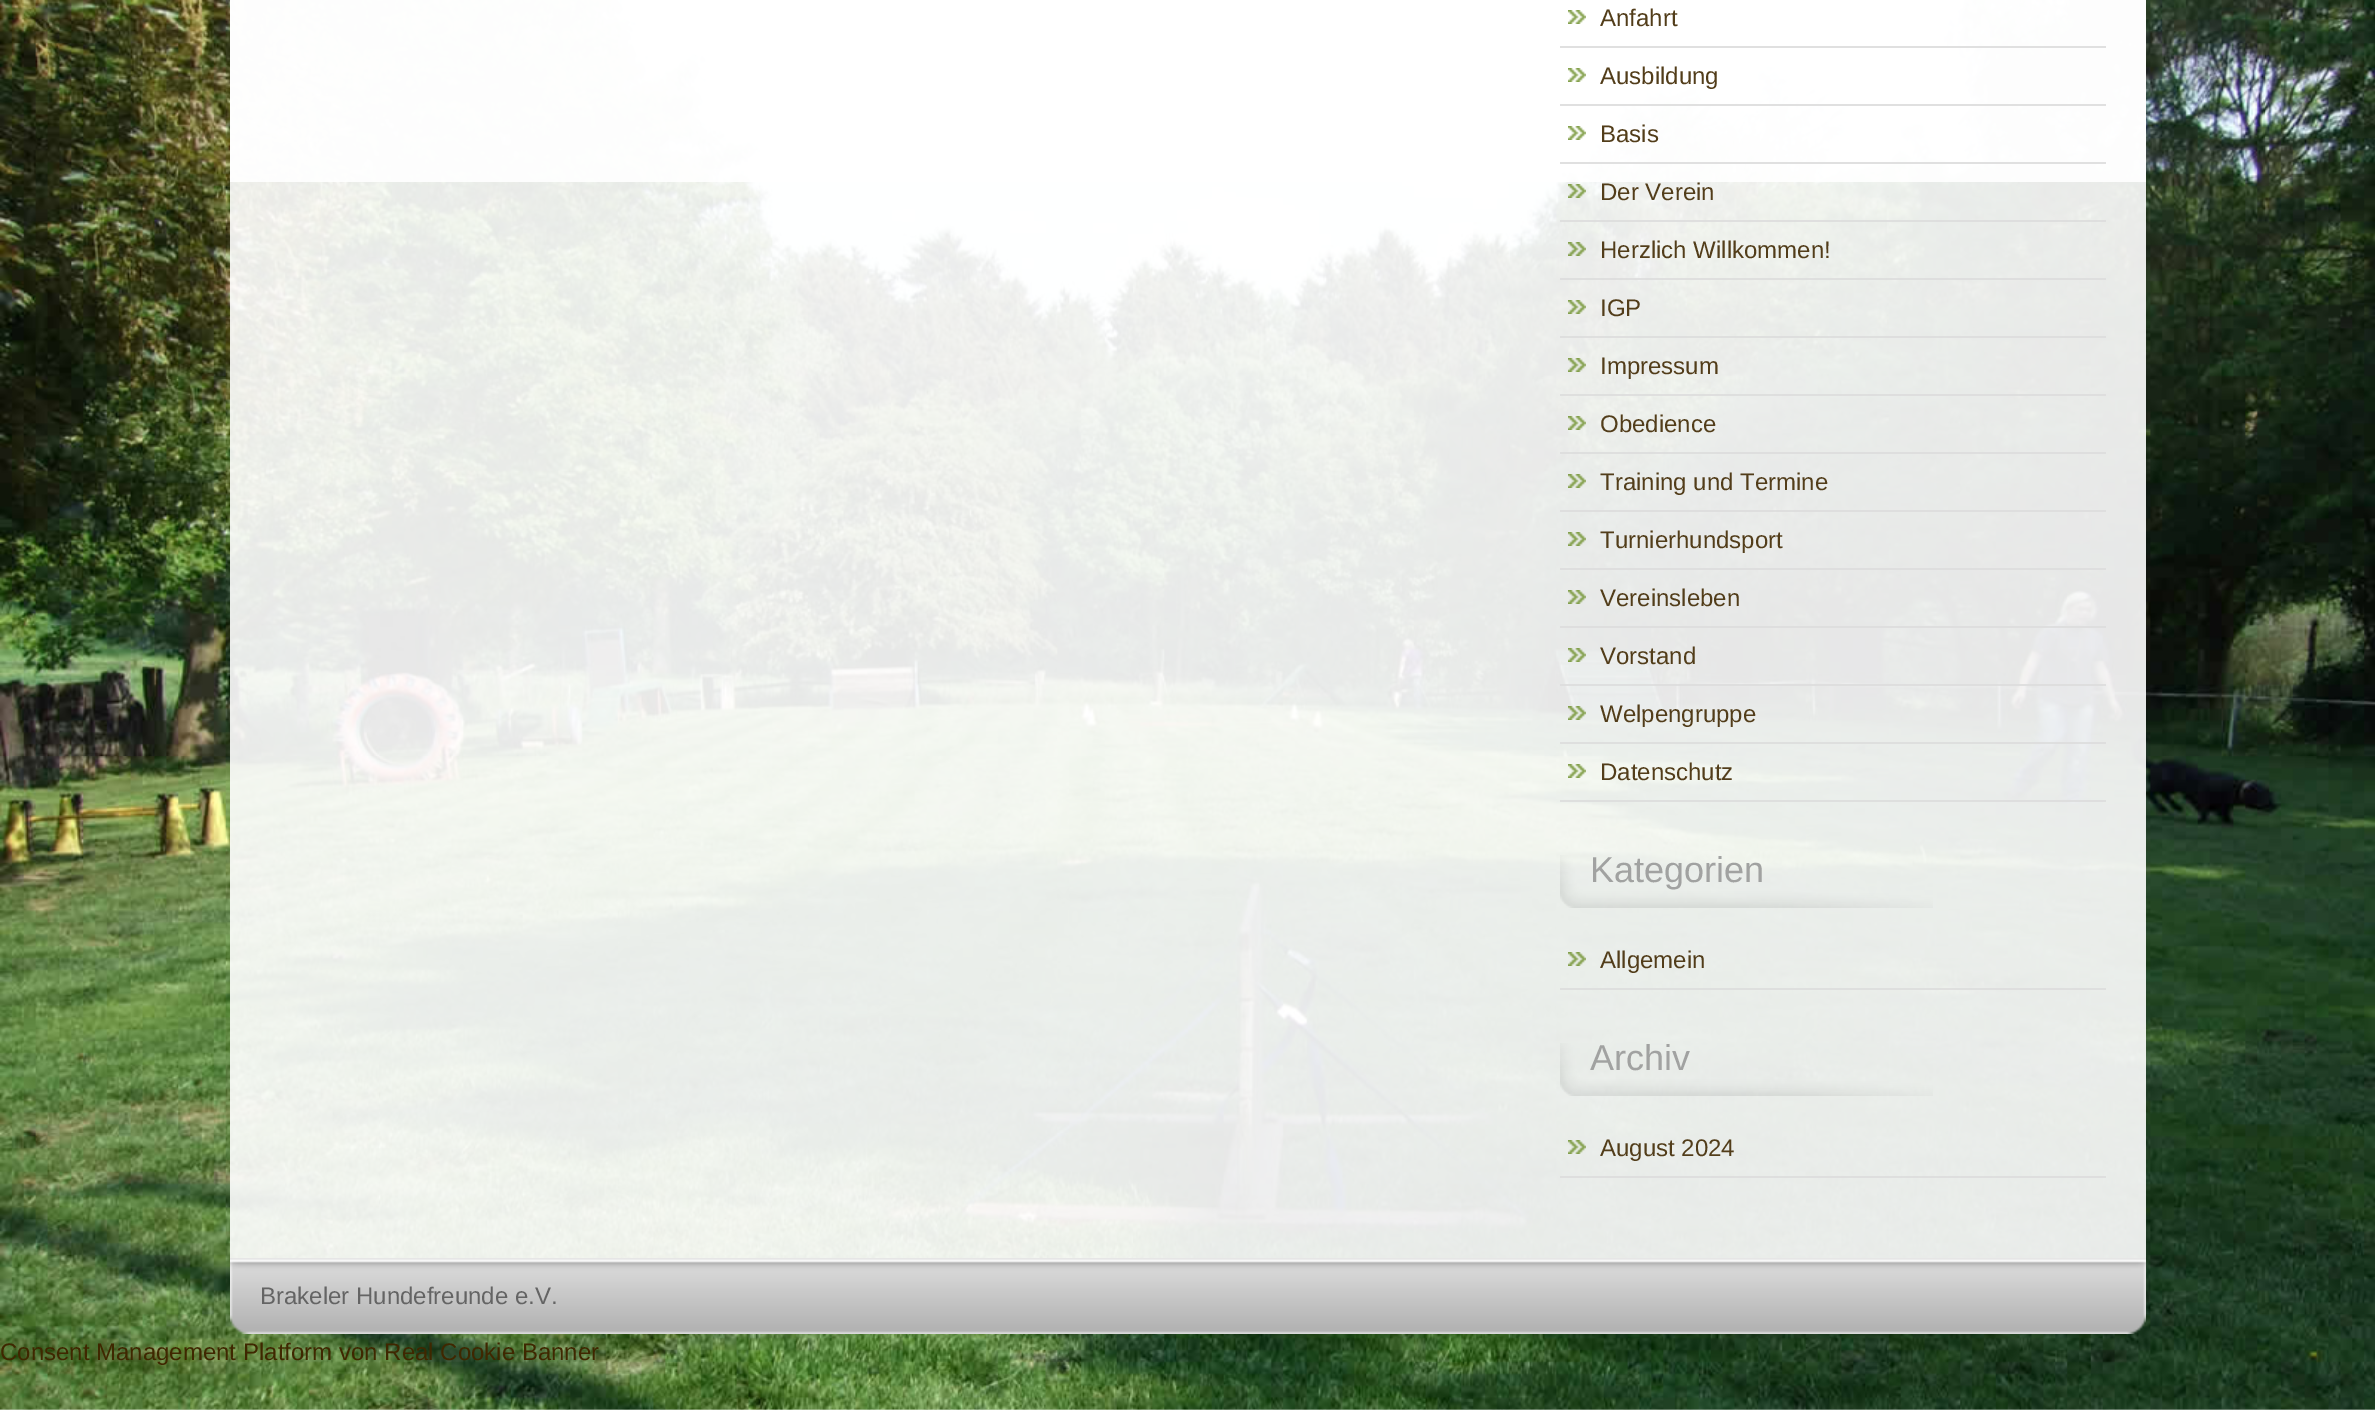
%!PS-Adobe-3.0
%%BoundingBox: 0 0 2375 1410
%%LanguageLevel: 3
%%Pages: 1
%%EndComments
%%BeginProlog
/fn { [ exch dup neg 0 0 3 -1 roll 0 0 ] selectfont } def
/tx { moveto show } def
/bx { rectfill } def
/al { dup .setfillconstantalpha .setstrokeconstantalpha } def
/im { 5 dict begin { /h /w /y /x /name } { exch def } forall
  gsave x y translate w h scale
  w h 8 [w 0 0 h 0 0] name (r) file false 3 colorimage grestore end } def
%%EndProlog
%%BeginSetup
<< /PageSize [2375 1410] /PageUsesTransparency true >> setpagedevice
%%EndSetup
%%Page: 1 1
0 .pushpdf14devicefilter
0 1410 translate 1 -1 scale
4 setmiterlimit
1 setgray
0 0 2375 1410 bx
(image0.raw) 0 0 2375 1410 im
0.9 al
230 0 1916 1258 bx
230 0 1916 182 bx
1 al
(image1.raw) 1568 10 18 14 im
0.878 setgray
1560 46 546 2 bx
/LiberationSans-Regular 24 fn
0.322 0.239 0.102 setrgbcolor
(Anfahrt) 1600 26 tx
(image1.raw) 1568 68 18 14 im
0.878 setgray
1560 104 546 2 bx
0.322 0.239 0.102 setrgbcolor
(Ausbildung) 1600 84 tx
(image1.raw) 1568 126 18 14 im
0.878 setgray
1560 162 546 2 bx
0.322 0.239 0.102 setrgbcolor
(Basis) 1600 142 tx
(image2.raw) 1568 184 18 14 im
0.9 al
0.867 setgray
1560 220 546 2 bx
1 al
0.322 0.239 0.102 setrgbcolor
(Der Verein) 1600 200 tx
(image3.raw) 1568 242 18 14 im
0.9 al
0.867 setgray
1560 278 546 2 bx
1 al
0.322 0.239 0.102 setrgbcolor
(Herzlich Willkommen!) 1600 258 tx
(image4.raw) 1568 300 18 14 im
0.9 al
0.867 setgray
1560 336 546 2 bx
1 al
0.322 0.239 0.102 setrgbcolor
(IGP) 1600 316 tx
(image5.raw) 1568 358 18 14 im
0.9 al
0.867 setgray
1560 394 546 2 bx
1 al
0.322 0.239 0.102 setrgbcolor
(Impressum) 1600 374 tx
(image6.raw) 1568 416 18 14 im
0.9 al
0.867 setgray
1560 452 546 2 bx
1 al
0.322 0.239 0.102 setrgbcolor
(Obedience) 1600 432 tx
(image7.raw) 1568 474 18 14 im
0.9 al
0.867 setgray
1560 510 546 2 bx
1 al
0.322 0.239 0.102 setrgbcolor
(Training und Termine) 1600 490 tx
(image8.raw) 1568 532 18 14 im
0.9 al
0.867 setgray
1560 568 546 2 bx
1 al
0.322 0.239 0.102 setrgbcolor
(Turnierhundsport) 1600 548 tx
(image9.raw) 1568 590 18 14 im
0.9 al
0.867 setgray
1560 626 546 2 bx
1 al
0.322 0.239 0.102 setrgbcolor
(Vereinsleben) 1600 606 tx
(image10.raw) 1568 648 18 14 im
0.9 al
0.867 setgray
1560 684 546 2 bx
1 al
0.322 0.239 0.102 setrgbcolor
(Vorstand) 1600 664 tx
(image11.raw) 1568 706 18 14 im
0.9 al
0.867 setgray
1560 742 546 2 bx
1 al
0.322 0.239 0.102 setrgbcolor
(Welpengruppe) 1600 722 tx
(image12.raw) 1568 764 18 14 im
0.9 al
0.867 setgray
1560 800 546 2 bx
1 al
0.322 0.239 0.102 setrgbcolor
(Datenschutz) 1600 780 tx
(image13.raw) 1560 855 373 53 im
/LiberationSans-Regular 36 fn
0.631 0.635 0.631 setrgbcolor
(Kategorien) 1590 882 tx
(image14.raw) 1568 952 18 14 im
0.9 al
0.867 setgray
1560 988 546 2 bx
/LiberationSans-Regular 24 fn
1 al
0.322 0.239 0.102 setrgbcolor
(Allgemein) 1600 968 tx
(image15.raw) 1560 1043 373 53 im
/LiberationSans-Regular 36 fn
0.631 0.635 0.631 setrgbcolor
(Archiv) 1590 1070 tx
(image16.raw) 1568 1140 18 14 im
0.9 al
0.867 setgray
1560 1176 546 2 bx
/LiberationSans-Regular 24 fn
1 al
0.322 0.239 0.102 setrgbcolor
(August 2024) 1600 1156 tx
(image17.raw) 230 1258 1916 76 im
0.392 setgray
(Brakeler Hundefreunde e.V.) 260 1304 tx
0.247 0.153 0 setrgbcolor
(Consent Management Platform von Real Cookie Banner) 0 1360 tx
.poppdf14devicefilter showpage
%%EOF
